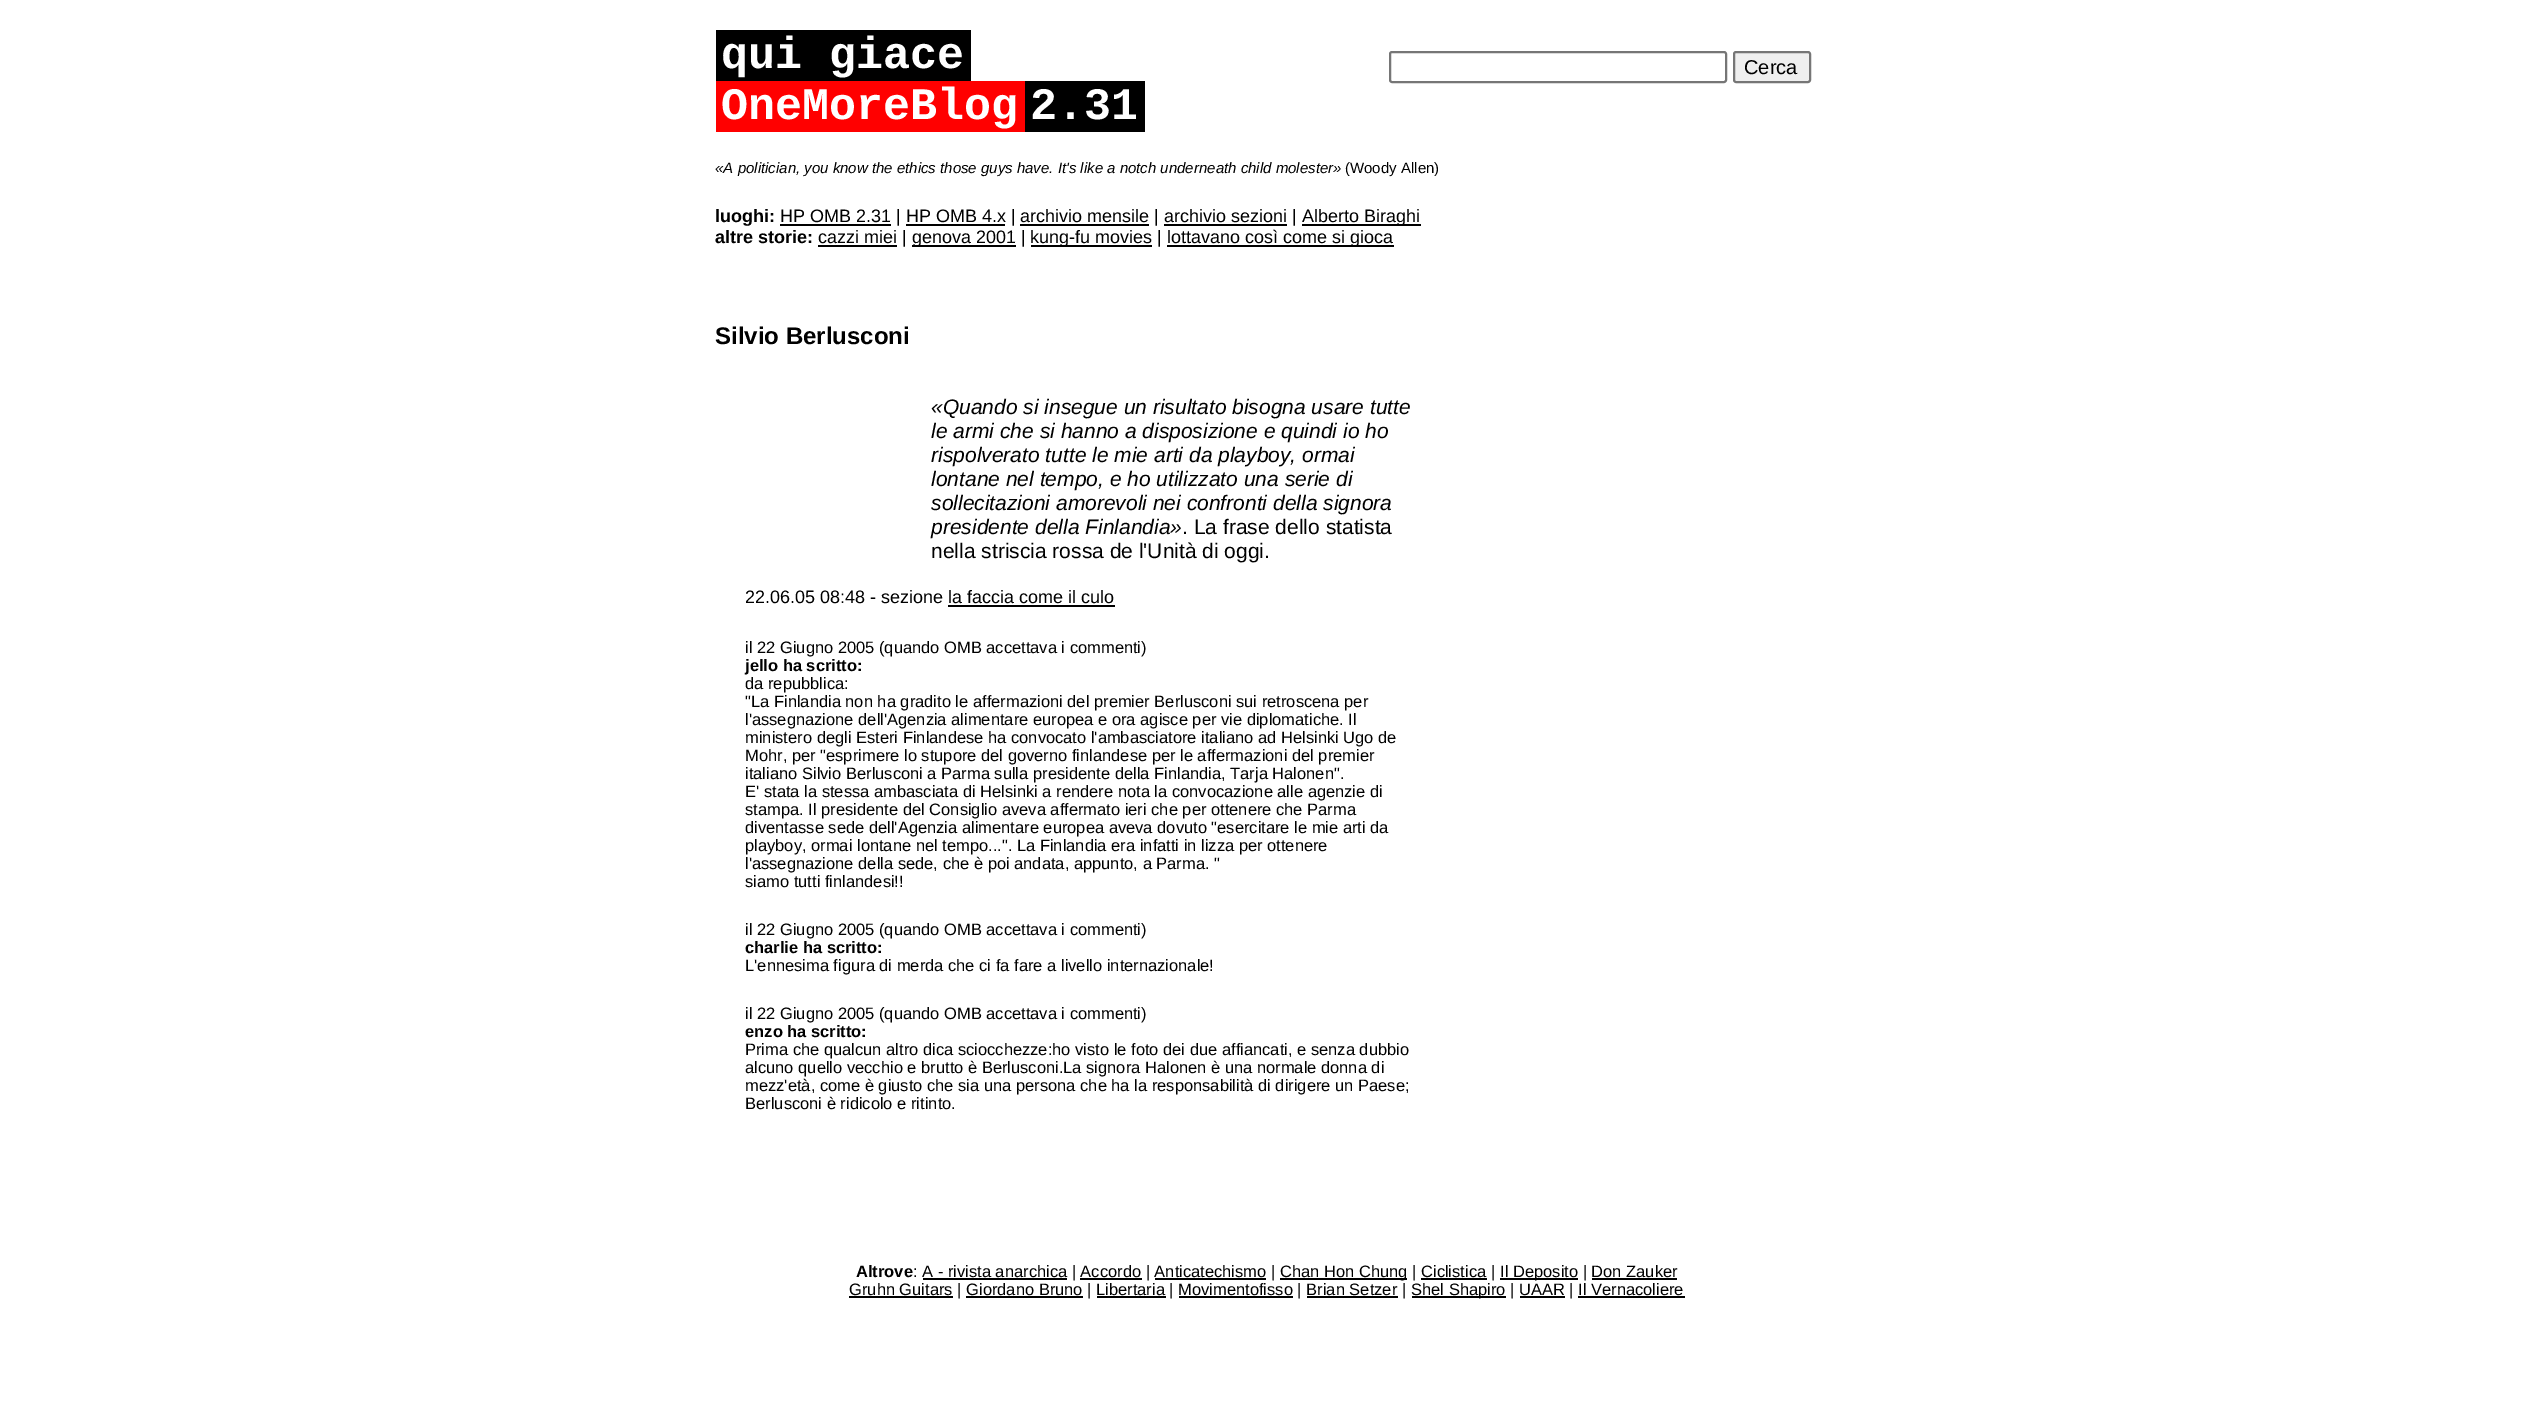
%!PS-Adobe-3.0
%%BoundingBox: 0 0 2539 1409
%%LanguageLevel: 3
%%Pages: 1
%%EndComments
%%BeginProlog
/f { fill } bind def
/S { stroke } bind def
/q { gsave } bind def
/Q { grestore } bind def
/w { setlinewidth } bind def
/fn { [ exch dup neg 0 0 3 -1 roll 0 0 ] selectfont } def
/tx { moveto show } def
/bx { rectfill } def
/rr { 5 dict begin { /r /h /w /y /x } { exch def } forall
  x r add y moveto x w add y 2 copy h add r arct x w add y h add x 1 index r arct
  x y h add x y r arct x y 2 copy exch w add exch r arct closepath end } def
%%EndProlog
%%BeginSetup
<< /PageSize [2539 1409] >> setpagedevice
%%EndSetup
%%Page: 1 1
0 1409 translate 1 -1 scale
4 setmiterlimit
1 setgray
0 0 2539 1409 bx
0 setgray
716 30 255 51 bx
/LiberationMono-Bold 45 fn
1 setgray
(qui giace) 721 68 tx
1 0 0 setrgbcolor
716 81 309 51 bx
1 setgray
(OneMoreBlog) 721 119 tx
0 setgray
1025 81 120 51 bx
1 setgray
(2.31) 1030 119 tx
0.463 setgray
2 w
1390 52 336 30 2 rr S
0.937 setgray
1734 52 76 30 2 rr q f Q
0.463 setgray
S
/LiberationSans-Regular 20 fn
0 setgray
(Cerca) 1744 74 tx
/LiberationSans-Italic 15 fn
(«A politician, you know the ethics those guys have. It's like a notch underneath child molester») 715 173 tx
/LiberationSans-Regular 15 fn
(\(Woody Allen\)) 1345 173 tx
/LiberationSans-Bold 18 fn
(luoghi:) 715 222 tx
780 224 111 2 bx
/LiberationSans-Regular 18 fn
(HP OMB 2.31 | HP OMB 4.x | archivio mensile | archivio sezioni |) 780 222 tx
1302 224 119 2 bx
(Alberto Biraghi) 1302 222 tx
906 224 99 2 bx
1020 224 129 2 bx
1164 224 123 2 bx
/LiberationSans-Bold 18 fn
(altre storie:) 715 243 tx
818 245 79 2 bx
/LiberationSans-Regular 18 fn
(cazzi miei |) 818 243 tx
912 245 104 2 bx
(genova 2001 |) 912 243 tx
1031 245 121 2 bx
(kung-fu movies |) 1030 243 tx
1167 245 227 2 bx
(lottavano così come si gioca) 1167 243 tx
/LiberationSans-Bold 24 fn
(Silvio Berlusconi) 715 344 tx
/LiberationSans-Italic 21 fn
(«Quando si insegue un risultato bisogna usare tutte) 931 414 tx
(le armi che si hanno a disposizione e quindi io ho) 931 438 tx
(rispolverato tutte le mie arti da playboy, ormai) 931 462 tx
(lontane nel tempo, e ho utilizzato una serie di) 931 486 tx
(sollecitazioni amorevoli nei confronti della signora) 931 510 tx
(presidente della Finlandia») 931 534 tx
/LiberationSans-Regular 21 fn
(. La frase dello statista) 1182 534 tx
(nella striscia rossa de l'Unità di oggi.) 931 558 tx
/LiberationSans-Regular 18 fn
(22.06.05 08:48 - sezione la faccia come il culo) 745 603 tx
948 605 167 2 bx
/LiberationSans-Regular 16.5 fn
(il 22 Giugno 2005 \(quando OMB accettava i commenti\)) 745 653 tx
/LiberationSans-Bold 16.5 fn
(jello ha scritto:) 745 671 tx
/LiberationSans-Regular 16.5 fn
(da repubblica:) 745 689 tx
("La Finlandia non ha gradito le affermazioni del premier Berlusconi sui retroscena per) 745 707 tx
(l'assegnazione dell'Agenzia alimentare europea e ora agisce per vie diplomatiche. Il) 745 725 tx
(ministero degli Esteri Finlandese ha convocato l'ambasciatore italiano ad Helsinki Ugo de) 745 743 tx
(Mohr, per "esprimere lo stupore del governo finlandese per le affermazioni del premier) 745 761 tx
(italiano Silvio Berlusconi a Parma sulla presidente della Finlandia, Tarja Halonen".) 745 779 tx
(E' stata la stessa ambasciata di Helsinki a rendere nota la convocazione alle agenzie di) 745 797 tx
(stampa. Il presidente del Consiglio aveva affermato ieri che per ottenere che Parma) 745 815 tx
(diventasse sede dell'Agenzia alimentare europea aveva dovuto "esercitare le mie arti da) 745 833 tx
(playboy, ormai lontane nel tempo...". La Finlandia era infatti in lizza per ottenere) 745 851 tx
(l'assegnazione della sede, che è poi andata, appunto, a Parma. ") 745 869 tx
(siamo tutti finlandesi!!) 745 887 tx
(il 22 Giugno 2005 \(quando OMB accettava i commenti\)) 745 935 tx
/LiberationSans-Bold 16.5 fn
(charlie ha scritto:) 745 953 tx
/LiberationSans-Regular 16.5 fn
(L'ennesima figura di merda che ci fa fare a livello internazionale!) 745 971 tx
(il 22 Giugno 2005 \(quando OMB accettava i commenti\)) 745 1019 tx
/LiberationSans-Bold 16.5 fn
(enzo ha scritto:) 745 1037 tx
/LiberationSans-Regular 16.5 fn
(Prima che qualcun altro dica sciocchezze:ho visto le foto dei due affiancati, e senza dubbio) 745 1055 tx
(alcuno quello vecchio e brutto è Berlusconi.La signora Halonen è una normale donna di) 745 1073 tx
(mezz'età, come è giusto che sia una persona che ha la responsabilità di dirigere un Paese;) 745 1091 tx
(Berlusconi è ridicolo e ritinto.) 745 1109 tx
/LiberationSans-Bold 16.5 fn
(Altrove) 856 1277 tx
/LiberationSans-Regular 16.5 fn
(: A - rivista anarchica | Accordo | Anticatechismo |) 913 1277 tx
1280 1278 127 2 bx
(Chan Hon Chung | Ciclistica |) 1280 1277 tx
1500 1278 78 2 bx
(Il Deposito | Don Zauker) 1500 1277 tx
923 1278 144 2 bx
1080 1278 62 2 bx
1155 1278 111 2 bx
1421 1278 66 2 bx
1592 1278 85 2 bx
849 1296 104 2 bx
(Gruhn Guitars | Giordano Bruno | Libertaria | Movimentofisso | Brian Setzer |) 849 1295 tx
1412 1296 94 2 bx
(Shel Shapiro | UAAR | Il Vernacoliere) 1411 1295 tx
966 1296 117 2 bx
1097 1296 69 2 bx
1179 1296 114 2 bx
1307 1296 91 2 bx
1520 1296 45 2 bx
1578 1296 107 2 bx
showpage
%%EOF
